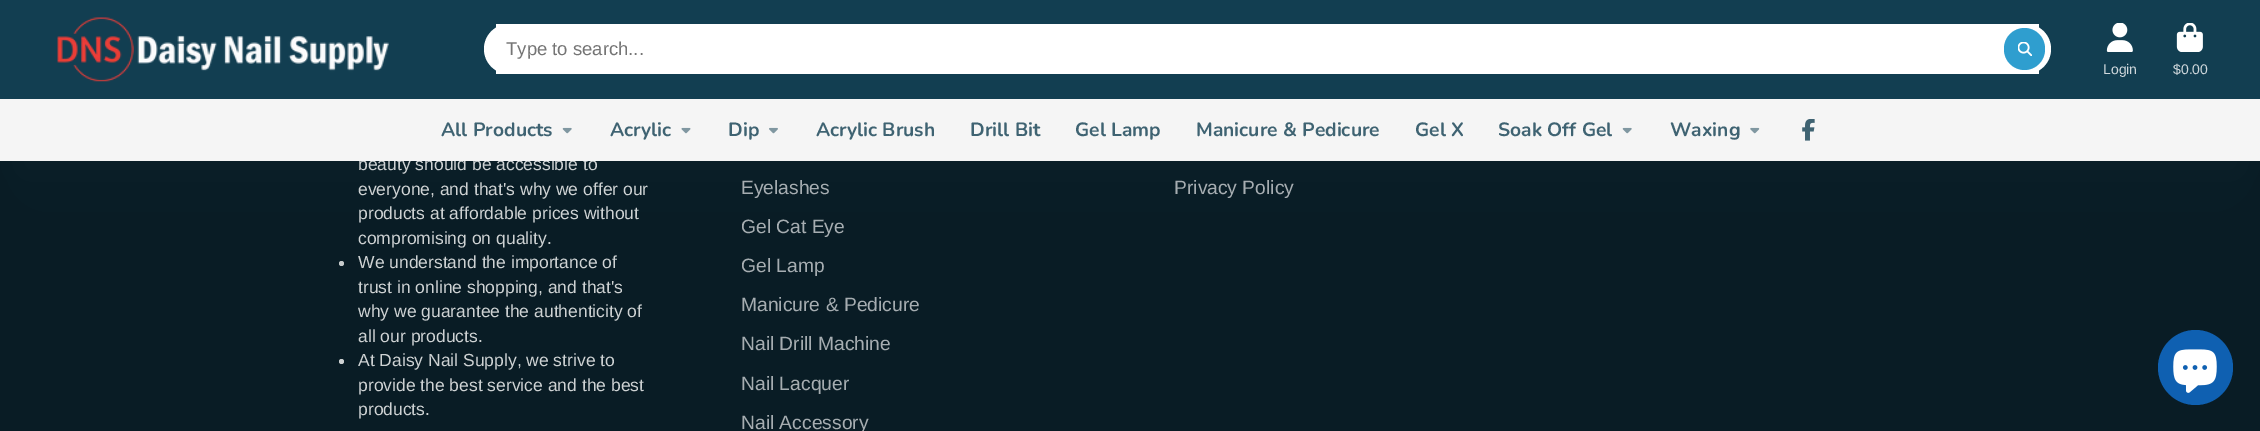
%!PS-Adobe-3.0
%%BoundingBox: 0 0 2260 431
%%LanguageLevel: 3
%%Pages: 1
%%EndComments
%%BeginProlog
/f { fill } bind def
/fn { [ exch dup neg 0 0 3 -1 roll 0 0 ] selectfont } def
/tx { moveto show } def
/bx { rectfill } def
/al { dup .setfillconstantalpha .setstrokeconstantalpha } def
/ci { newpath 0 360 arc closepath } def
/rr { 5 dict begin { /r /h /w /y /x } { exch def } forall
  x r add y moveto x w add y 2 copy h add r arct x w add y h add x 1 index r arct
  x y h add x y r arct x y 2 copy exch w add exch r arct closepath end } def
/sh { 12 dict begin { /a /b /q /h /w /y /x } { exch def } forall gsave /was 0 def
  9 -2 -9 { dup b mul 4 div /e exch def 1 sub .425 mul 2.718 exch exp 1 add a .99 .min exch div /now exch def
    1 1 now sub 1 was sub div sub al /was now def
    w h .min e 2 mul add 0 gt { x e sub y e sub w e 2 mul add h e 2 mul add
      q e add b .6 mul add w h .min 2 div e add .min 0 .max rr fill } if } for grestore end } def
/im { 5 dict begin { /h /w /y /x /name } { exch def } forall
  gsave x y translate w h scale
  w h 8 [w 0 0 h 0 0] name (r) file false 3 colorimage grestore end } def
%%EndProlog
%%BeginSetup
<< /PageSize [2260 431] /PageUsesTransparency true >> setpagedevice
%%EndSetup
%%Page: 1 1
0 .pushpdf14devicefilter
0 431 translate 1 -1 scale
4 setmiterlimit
0.035 0.11 0.145 setrgbcolor
0 0 2260 431 bx
0.059 0.141 0.176 setrgbcolor
18 50 2225 126 0 24 0.4 sh
0.808 0.824 0.827 setrgbcolor
341.5 263.5 2.5 ci f
341.5 361.5 2.5 ci f
0.059 0.141 0.176 setrgbcolor
18 73 2225 126 0 54.5 0.3 sh
0.071 0.243 0.318 setrgbcolor
0 0 2260 99 bx
(image0.raw) 57 17 332 65 im
1 setgray
496 24 1543 50 bx
484 24 1567 50 25 rr f
/LiberationSans-Regular 18.5 fn
0.459 setgray
(Type to search...) 506 55 tx
0.184 0.62 0.812 setrgbcolor
2004 28 41 42 20.5 rr f
(image1.raw) 2018 42 14 14 im
(image2.raw) 2106 23 27 29 im
/LiberationSans-Regular 14 fn
0.816 0.847 0.863 setrgbcolor
(Login) 2103 74 tx
(image3.raw) 2176 23 27 29 im
($0.00) 2173 74 tx
/LiberationSans-Regular 17.5 fn
0.808 0.824 0.827 setrgbcolor
(beauty should be accessible to) 358 170 tx
0.961 setgray
0 99 2260 62 bx
/Nunito-Bold 19.25 fn
0.247 0.388 0.447 setrgbcolor
(All Products) 441 136 tx
(image4.raw) 562 127 10 7 im
(Acrylic) 610 136 tx
(image5.raw) 681 127 10 7 im
(Dip) 728 136 tx
(image6.raw) 769 127 9 7 im
(Acrylic Brush) 816 136 tx
(Drill Bit) 970 136 tx
(Gel Lamp) 1075 136 tx
(Manicure & Pedicure) 1196 136 tx
(Gel X) 1415 136 tx
(Soak Off Gel) 1498 136 tx
(image4.raw) 1622 127 10 7 im
(Waxing) 1670 136 tx
(image7.raw) 1750 127 10 7 im
(image8.raw) 1802 119 13 22 im
/LiberationSans-Regular 17.5 fn
0.808 0.824 0.827 setrgbcolor
(everyone, and that's why we offer our) 358 195 tx
(products at affordable prices without) 358 219 tx
(compromising on quality.) 358 244 tx
(We understand the importance of) 358 268 tx
(trust in online shopping, and that's) 358 293 tx
(why we guarantee the authenticity of) 358 317 tx
(all our products.) 358 342 tx
(At Daisy Nail Supply, we strive to) 358 366 tx
(provide the best service and the best) 358 391 tx
(products.) 358 415 tx
/LiberationSans-Regular 19.25 fn
0.651 0.678 0.694 setrgbcolor
(Eyelashes) 741 194 tx
(Gel Cat Eye) 741 233 tx
(Gel Lamp) 741 272 tx
(Manicure & Pedicure) 741 311 tx
(Nail Drill Machine) 741 350 tx
(Nail Lacquer) 741 390 tx
(Nail Accessory) 741 429 tx
(Privacy Policy) 1174 194 tx
0.059 0.376 0.694 setrgbcolor
2195.5 367.5 37.5 ci f
(image9.raw) 2173 349 44 44 im
.poppdf14devicefilter showpage
%%EOF
